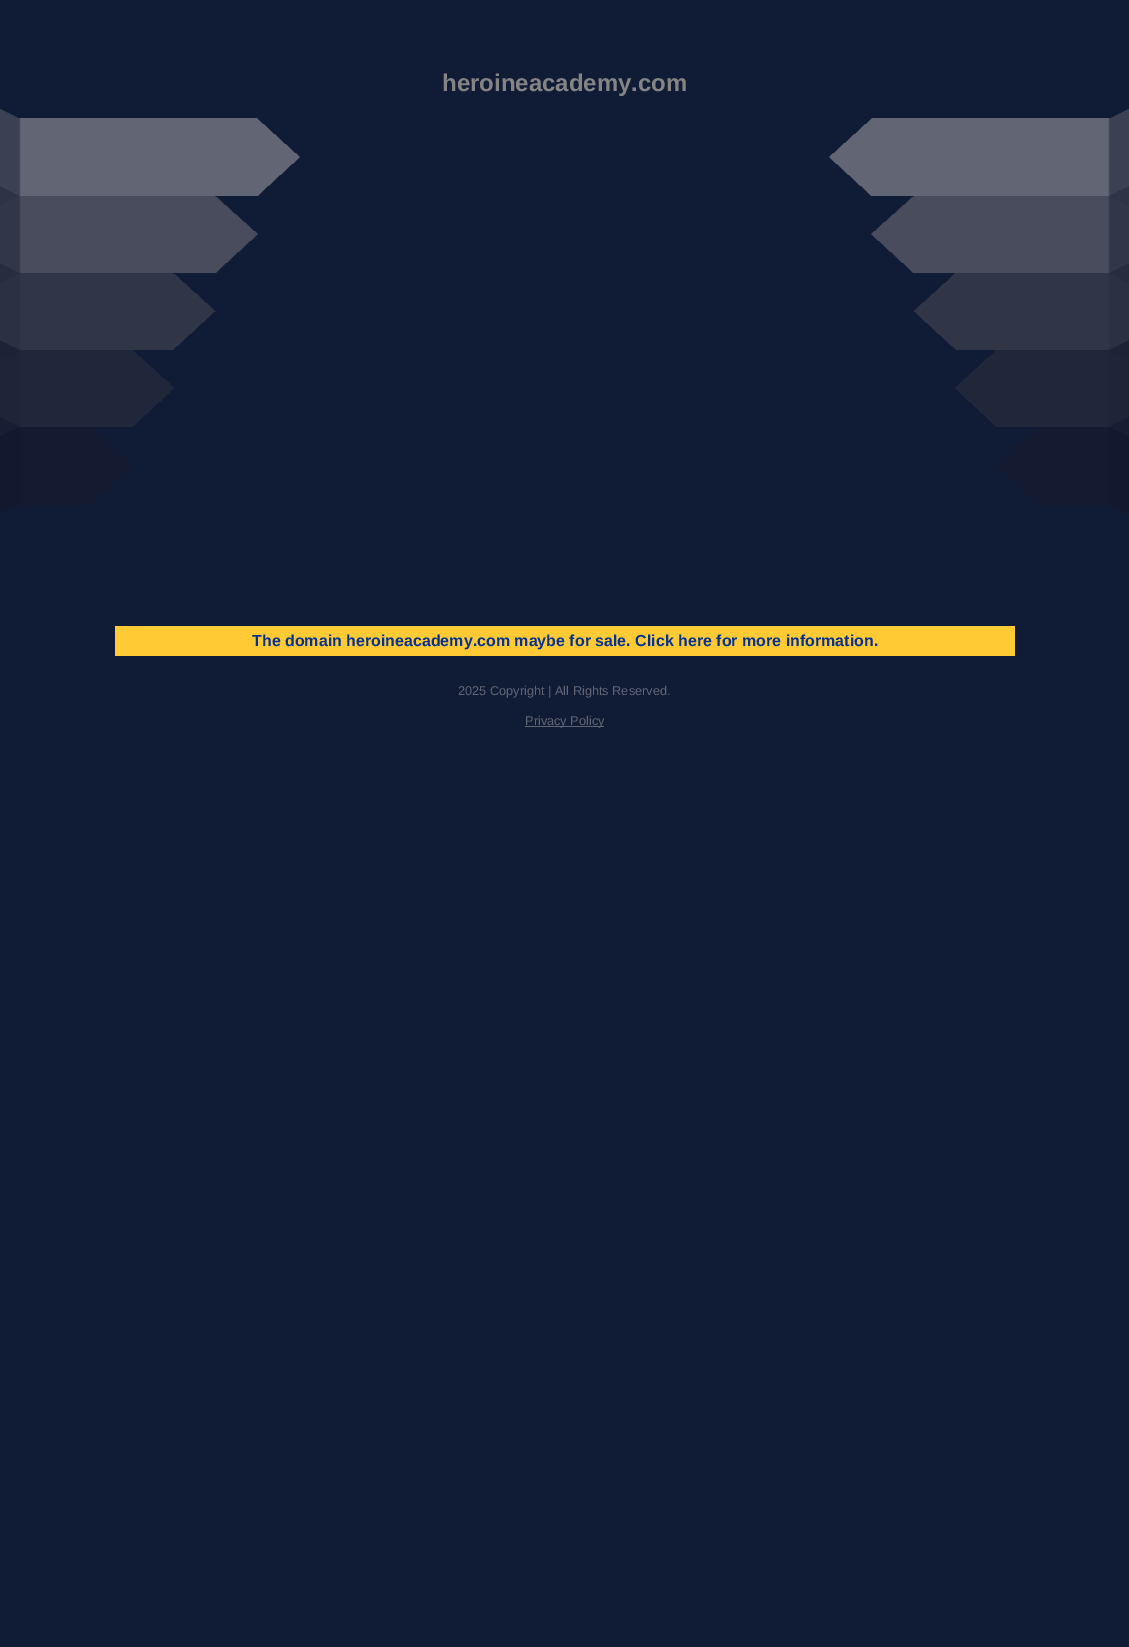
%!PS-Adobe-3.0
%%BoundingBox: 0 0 1129 1647
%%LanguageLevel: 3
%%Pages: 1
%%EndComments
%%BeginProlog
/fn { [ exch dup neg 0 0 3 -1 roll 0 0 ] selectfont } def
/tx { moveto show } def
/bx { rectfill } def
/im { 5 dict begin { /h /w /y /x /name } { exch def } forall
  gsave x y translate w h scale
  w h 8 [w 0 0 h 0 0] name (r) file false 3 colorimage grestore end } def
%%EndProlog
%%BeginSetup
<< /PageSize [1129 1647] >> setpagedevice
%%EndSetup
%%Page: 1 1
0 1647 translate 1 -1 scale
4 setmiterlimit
0.063 0.11 0.212 setrgbcolor
0 0 1129 1647 bx
(image0.raw) 0 109 1129 405 im
/LiberationSans-Bold 24 fn
0.518 setgray
(heroineacademy.com) 442 91 tx
1 0.792 0.2 setrgbcolor
115 626 900 30 bx
/LiberationSans-Bold 16 fn
0.02 0.196 0.573 setrgbcolor
(The domain heroineacademy.com maybe for sale. Click here for more information.) 252 646 tx
/LiberationSans-Regular 12.75 fn
0.384 0.396 0.455 setrgbcolor
(2025 Copyright | All Rights Reserved.) 458 695 tx
525 726 79 1 bx
(Privacy Policy) 525 725 tx
showpage
%%EOF
